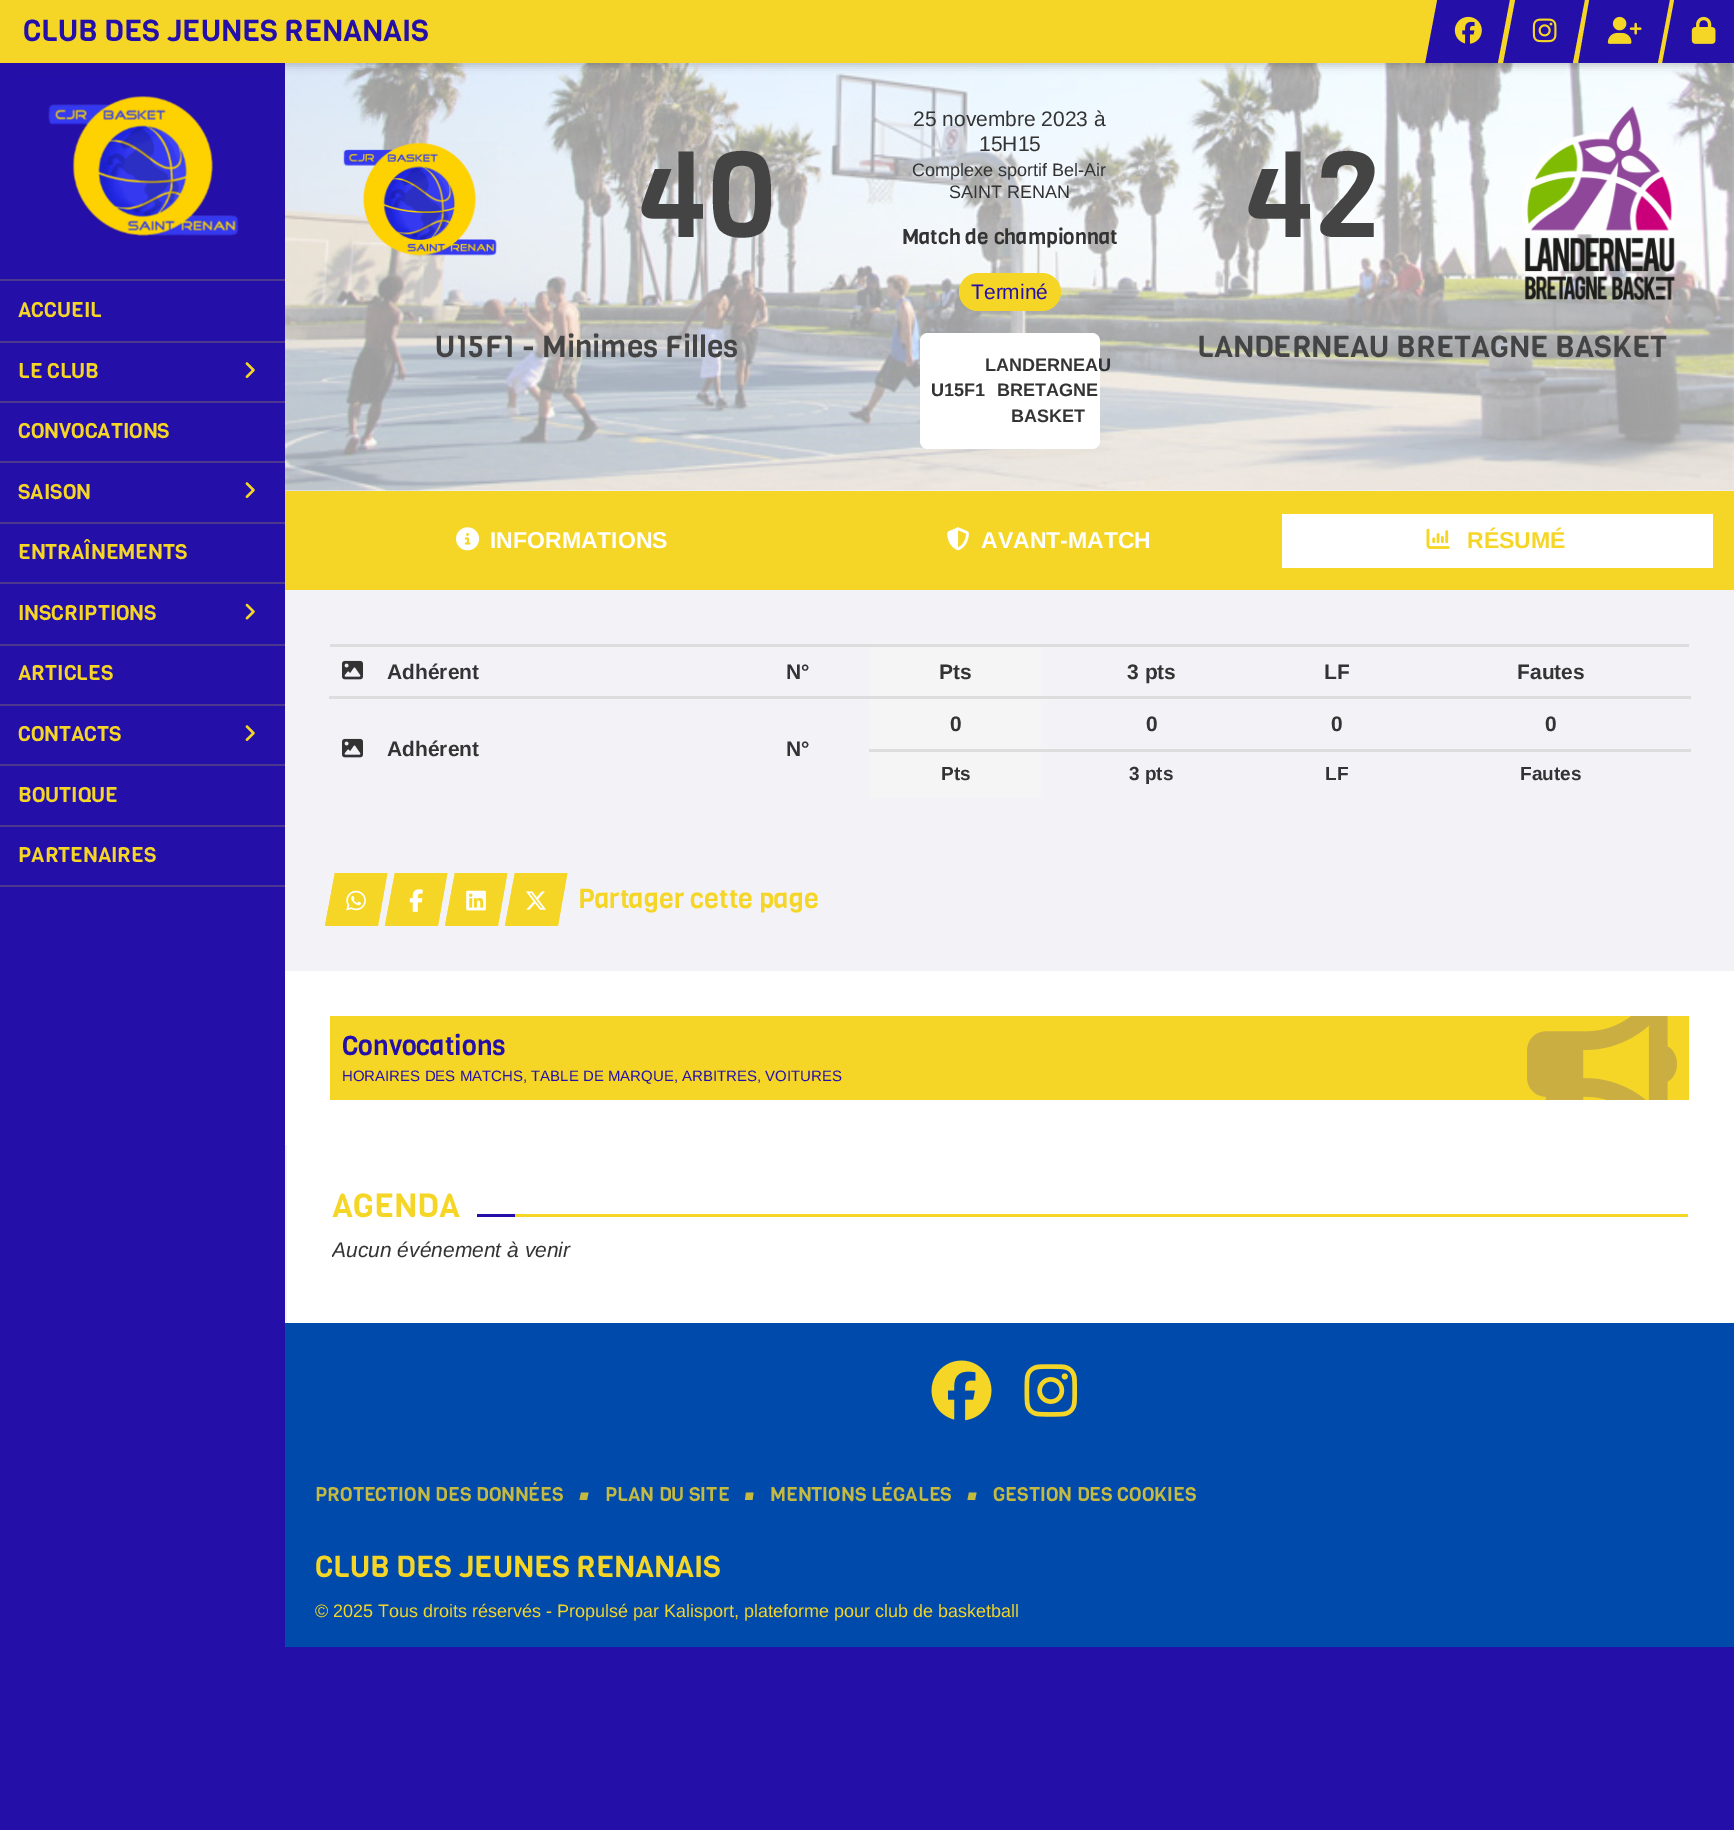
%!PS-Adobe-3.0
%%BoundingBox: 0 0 1734 1830
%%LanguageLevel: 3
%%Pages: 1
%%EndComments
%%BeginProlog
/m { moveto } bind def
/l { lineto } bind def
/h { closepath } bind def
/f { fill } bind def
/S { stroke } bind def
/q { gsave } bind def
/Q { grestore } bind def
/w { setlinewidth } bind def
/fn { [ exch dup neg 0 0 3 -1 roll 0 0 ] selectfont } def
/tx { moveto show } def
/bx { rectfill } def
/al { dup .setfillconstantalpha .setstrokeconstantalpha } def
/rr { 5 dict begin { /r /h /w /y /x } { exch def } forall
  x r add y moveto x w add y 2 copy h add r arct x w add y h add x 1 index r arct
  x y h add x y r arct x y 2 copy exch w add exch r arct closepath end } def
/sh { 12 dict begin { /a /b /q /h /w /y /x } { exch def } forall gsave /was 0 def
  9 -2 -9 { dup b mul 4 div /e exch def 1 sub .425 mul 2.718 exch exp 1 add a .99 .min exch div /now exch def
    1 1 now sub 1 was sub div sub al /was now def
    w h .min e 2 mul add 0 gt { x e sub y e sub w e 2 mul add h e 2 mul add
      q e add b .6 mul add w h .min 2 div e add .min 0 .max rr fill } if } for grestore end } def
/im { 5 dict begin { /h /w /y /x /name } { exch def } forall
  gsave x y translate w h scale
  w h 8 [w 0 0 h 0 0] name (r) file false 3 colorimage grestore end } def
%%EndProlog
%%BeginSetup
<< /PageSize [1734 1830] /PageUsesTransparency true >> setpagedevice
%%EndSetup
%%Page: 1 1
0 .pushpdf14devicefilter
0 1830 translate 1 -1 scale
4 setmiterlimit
0.141 0.059 0.659 setrgbcolor
0 0 1734 1830 bx
0.98 0.98 0.988 setrgbcolor
285 490 1449 1 bx
(image7.raw) 285 63 1449 428 im
0 setgray
6 3 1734 63 0 4 0.2 sh
0.961 0.839 0.153 setrgbcolor
0 0 1669 63 bx
/Viga-Regular 30 fn
0.141 0.059 0.659 setrgbcolor
(CLUB DES JEUNES RENANAIS) 23 41 tx
1434 0 m 1512 0 l 1500 63 l 1422 63 l h f
0.961 0.839 0.153 setrgbcolor
1434 0 m 1437 0 l 1425 63 l 1422 63 l h f
1432 0 m 1435 0 l 1424 63 l 1420 63 l h f
(image0.raw) 1454 16 28 28 im
0.141 0.059 0.659 setrgbcolor
1512 0 m 1586 0 l 1575 63 l 1500 63 l h f
0.961 0.839 0.153 setrgbcolor
1512 0 m 1515 0 l 1503 63 l 1500 63 l h f
1510 0 m 1513 0 l 1502 63 l 1498 63 l h f
(image1.raw) 1532 18 25 25 im
0.141 0.059 0.659 setrgbcolor
1586 0 m 1671 0 l 1659 63 l 1575 63 l h f
0.961 0.839 0.153 setrgbcolor
1586 0 m 1589 0 l 1578 63 l 1575 63 l h f
1585 0 m 1588 0 l 1576 63 l 1573 63 l h f
(image2.raw) 1607 16 35 28 im
0.141 0.059 0.659 setrgbcolor
1671 0 m 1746 0 l 1734 63 l 1659 63 l h f
0.961 0.839 0.153 setrgbcolor
1671 0 m 1674 0 l 1662 63 l 1659 63 l h f
1670 0 m 1673 0 l 1661 63 l 1658 63 l h f
(image3.raw) 1691 16 25 28 im
0.141 0.059 0.659 setrgbcolor
1 63 284 9 bx
(image4.raw) 48 96 191 140 im
0.306 0.216 0.557 setrgbcolor
0 885 285 2 bx
0 279 285 2 bx
/Viga-Regular 21 fn
0.961 0.839 0.153 setrgbcolor
(ACCUEIL) 18 317 tx
0.306 0.216 0.557 setrgbcolor
0 341 285 2 bx
0.961 0.839 0.153 setrgbcolor
(LE CLUB) 18 378 tx
(image5.raw) 245 362 10 16 im
0.306 0.216 0.557 setrgbcolor
0 401 285 2 bx
0.961 0.839 0.153 setrgbcolor
(CONVOCATIONS) 18 438 tx
0.306 0.216 0.557 setrgbcolor
0 461 285 2 bx
0.961 0.839 0.153 setrgbcolor
(SAISON) 18 499 tx
(image5.raw) 245 482 10 16 im
0.306 0.216 0.557 setrgbcolor
0 522 285 2 bx
0.961 0.839 0.153 setrgbcolor
(ENTRAÎNEMENTS) 18 559 tx
0.306 0.216 0.557 setrgbcolor
0 582 285 2 bx
0.961 0.839 0.153 setrgbcolor
(INSCRIPTIONS) 18 620 tx
(image6.raw) 245 603 10 17 im
0.306 0.216 0.557 setrgbcolor
0 644 285 2 bx
0.961 0.839 0.153 setrgbcolor
(ARTICLES) 18 680 tx
0.306 0.216 0.557 setrgbcolor
0 704 285 2 bx
0.961 0.839 0.153 setrgbcolor
(CONTACTS) 18 741 tx
(image5.raw) 245 725 10 16 im
0.306 0.216 0.557 setrgbcolor
0 764 285 2 bx
0.961 0.839 0.153 setrgbcolor
(BOUTIQUE) 18 802 tx
0.306 0.216 0.557 setrgbcolor
0 825 285 2 bx
0.961 0.839 0.153 setrgbcolor
(PARTENAIRES) 18 862 tx
0.953 0.949 0.969 setrgbcolor
285 590 1449 381 bx
(image8.raw) 343 142 154 114 im
/Viga-Regular 120 fn
0.267 setgray
(40) 637 237 tx
/LiberationSans-Regular 21 fn
0.2 setgray
(25 novembre 2023 à) 913 126 tx
(15H15) 979 151 tx
/LiberationSans-Regular 18 fn
(Complexe sportif Bel-Air) 912 176 tx
(SAINT RENAN) 949 198 tx
/Viga-Regular 21 fn
(Match de championnat) 902 244 tx
0.961 0.839 0.153 setrgbcolor
959 273 102 38 19 rr f
/LiberationSans-Regular 21 fn
0.141 0.059 0.659 setrgbcolor
(Terminé) 971 299 tx
/Viga-Regular 120 fn
0.267 setgray
(42) 1244 237 tx
(image9.raw) 1522 106 155 194 im
/Viga-Regular 30 fn
(U15F1 - Minimes Filles) 435 357 tx
(LANDERNEAU BRETAGNE BASKET) 1197 357 tx
1 setgray
920 333 180 116 8 rr f
/LiberationSans-Bold 18 fn
0.2 setgray
(U15F1) 931 396 tx
(LANDERNEAU) 985 371 tx
(BRETAGNE) 997 396 tx
(BASKET) 1011 422 tx
0.961 0.839 0.153 setrgbcolor
285 491 1449 99 bx
(image10.raw) 456 527 24 24 im
/LiberationSans-Bold 23 fn
1 setgray
(INFORMATIONS) 490 548 tx
(image11.raw) 947 527 22 24 im
(AVANT-MATCH) 981 548 tx
1282 514 431 54 bx
(image12.raw) 1426 528 24 21 im
0.961 0.839 0.153 setrgbcolor
(RÉSUMÉ) 1467 548 tx
0.867 setgray
330 644 1359 3 bx
(image13.raw) 342 660 21 20 im
/LiberationSans-Bold 21 fn
0.2 setgray
(Adhérent) 387 679 tx
(N°) 786 679 tx
0.961 setgray
870 647 171 49 bx
0.2 setgray
(Pts) 939 679 tx
(3 pts) 1127 679 tx
(LF) 1324 679 tx
(Fautes) 1517 679 tx
0.961 setgray
870 699 171 50 bx
0.2 setgray
(0) 950 731 tx
(0) 1146 731 tx
(0) 1331 731 tx
0.867 setgray
329 696 1362 3 bx
0.2 setgray
(0) 1545 731 tx
(image13.raw) 342 738 21 20 im
(Adhérent) 387 756 tx
(N°) 786 756 tx
0.961 setgray
870 752 171 46 bx
/LiberationSans-Bold 19 fn
0.2 setgray
(Pts) 941 780 tx
(3 pts) 1129 780 tx
(LF) 1325 780 tx
0.867 setgray
869 749 822 3 bx
0.2 setgray
(Fautes) 1520 780 tx
0.961 0.839 0.153 setrgbcolor
335 873 m 387 873 l 378 926 l 325 926 l h f
1.5 w
335.5 874 m 386.5 874 l 377 925 l 326 925 l h S
(image14.raw) 346 890 20 21 im
395 873 m 447 873 l 438 926 l 385 926 l h f
395.5 874 m 446.5 874 l 437 925 l 386 925 l h S
(image15.raw) 409 889 14 23 im
455 873 m 507 873 l 498 926 l 445 926 l h f
455.5 874 m 506.5 874 l 497 925 l 446 925 l h S
(image16.raw) 466 890 20 21 im
515 873 m 567 873 l 558 926 l 505 926 l h f
515.5 874 m 566.5 874 l 557 925 l 506 925 l h S
(image17.raw) 526 891 20 19 im
/Viga-Regular 27 fn
(Partager cette page) 578 908 tx
1 setgray
285 971 1449 174 bx
0.961 0.839 0.153 setrgbcolor
330 1016 1359 84 bx
0.141 0.059 0.659 setrgbcolor
(Convocations) 342 1055 tx
(image18.raw) 1527 1016 150 84 im
/LiberationSans-Regular 15 fn
(HORAIRES DES MATCHS, TABLE DE MARQUE, ARBITRES, VOITURES) 342 1081 tx
1 setgray
287 1145 1447 178 bx
0.953 0.949 0.969 setrgbcolor
285 1145 2 178 bx
/Viga-Regular 33 fn
0.961 0.839 0.153 setrgbcolor
(AGENDA) 332 1217 tx
0.141 0.059 0.659 setrgbcolor
477 1214 38 3 bx
0.961 0.839 0.153 setrgbcolor
515 1214 1173 3 bx
q
332 1223 1357 55 rectclip
/LiberationSans-Italic 21 fn
0.2 setgray
(Aucun événement à venir) 332 1257 tx
Q
0 0.29 0.671 setrgbcolor
285 1323 1449 324 bx
(image19.raw) 931 1360 61 61 im
(image20.raw) 1024 1364 53 53 im
/Viga-Regular 19.5 fn
0.769 0.729 0.255 setrgbcolor
(PROTECTION DES DONNÉES) 315 1501 tx
581 1492.5 m 588.5 1492.5 l 587 1500 l 579.5 1500 l h f
(PLAN DU SITE) 605 1501 tx
746 1492.5 m 753.5 1492.5 l 752.5 1500 l 745 1500 l h f
(MENTIONS LÉGALES) 770 1501 tx
969 1492.5 m 976.5 1492.5 l 975 1500 l 967.5 1500 l h f
(GESTION DES COOKIES) 993 1501 tx
/Viga-Regular 30 fn
0.961 0.839 0.153 setrgbcolor
(CLUB DES JEUNES RENANAIS) 315 1577 tx
/LiberationSans-Regular 18 fn
(© 2025 Tous droits réservés - Propulsé par Kalisport, plateforme pour club de basketball) 315 1617 tx
.poppdf14devicefilter showpage
%%EOF
